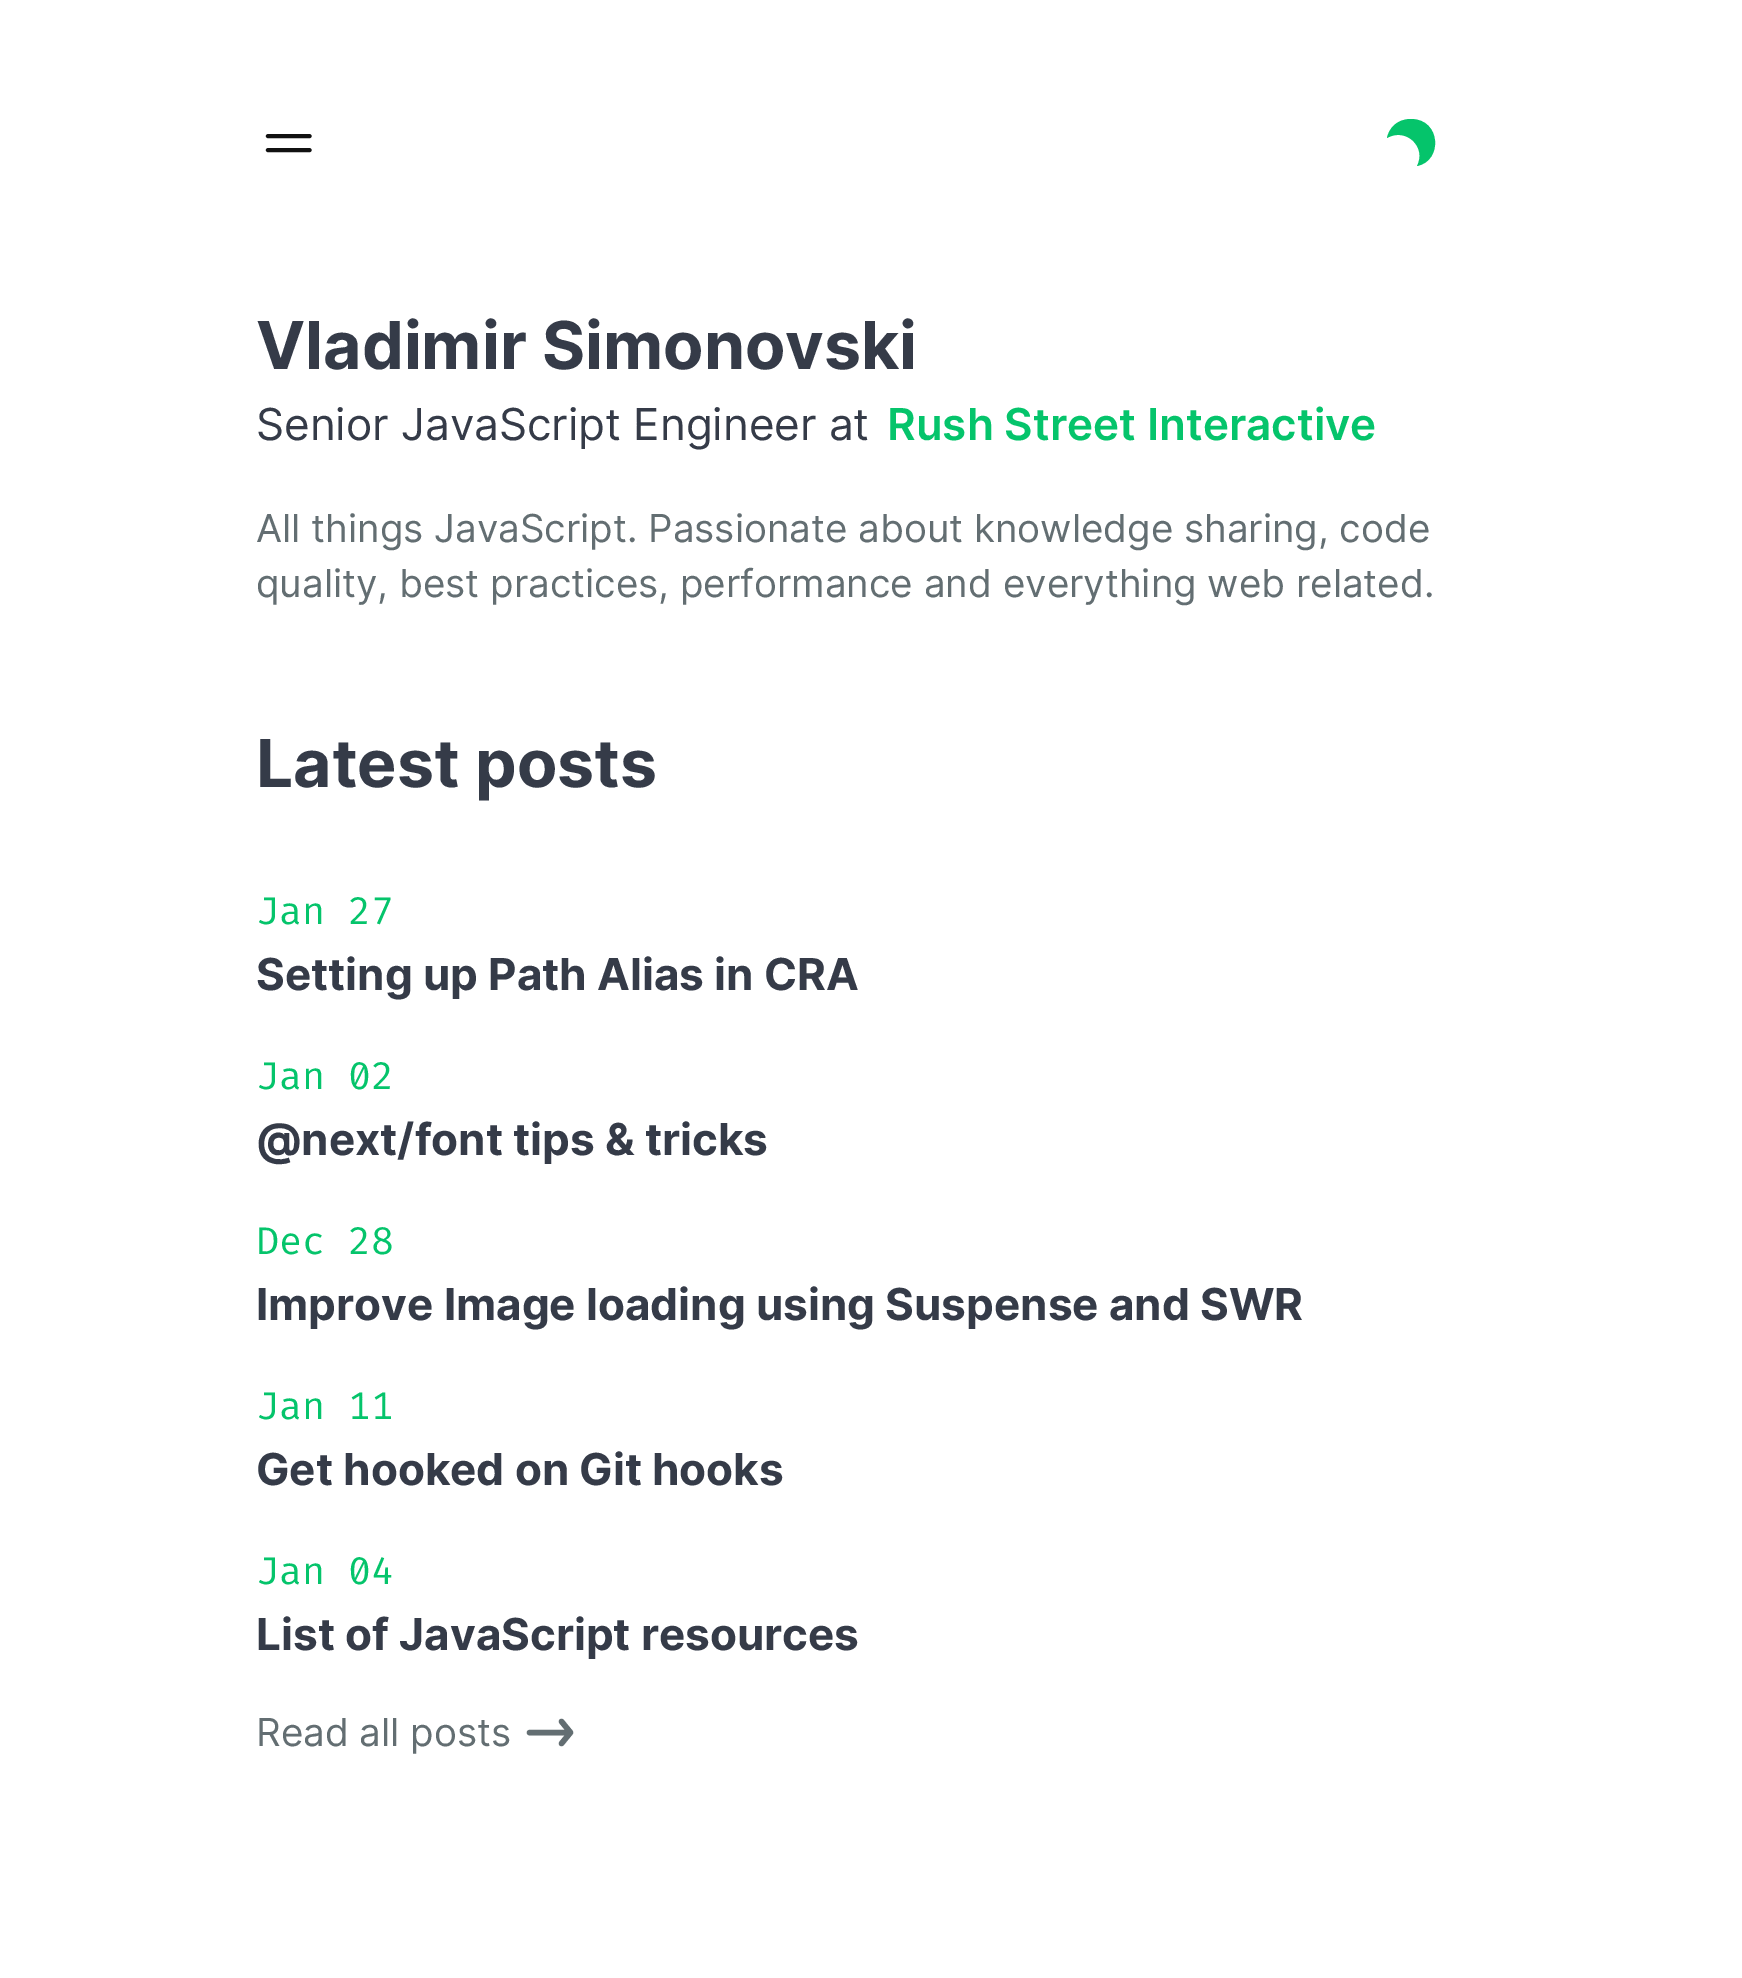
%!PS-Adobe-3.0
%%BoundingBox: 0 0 1742 1978
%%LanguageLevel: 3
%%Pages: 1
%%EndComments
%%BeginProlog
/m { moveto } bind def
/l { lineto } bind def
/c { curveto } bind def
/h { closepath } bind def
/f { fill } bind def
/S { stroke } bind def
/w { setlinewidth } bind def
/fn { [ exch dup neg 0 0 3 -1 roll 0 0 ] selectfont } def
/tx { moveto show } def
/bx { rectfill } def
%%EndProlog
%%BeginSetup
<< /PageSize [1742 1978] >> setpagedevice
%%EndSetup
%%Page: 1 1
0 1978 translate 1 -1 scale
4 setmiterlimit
1 setgray
0 0 1742 1978 bx
0.067 setgray
4.1 w
1 setlinecap
1 setlinejoin
268 136 m 309.5 136 l 268 150 m 309.5 150 l S
0.02 0.769 0.42 setrgbcolor
1411 119 m 1397 119 1389 128 1387 138 c 1406 127 1427 147 1417 166 c 1443 161 1441 119 1411 119 c h f
/Inter-Bold 66 fn
0.208 0.231 0.282 setrgbcolor
(Vladimir Simonovski) 256 369 tx
/Inter-Regular 44 fn
(Senior JavaScript Engineer at) 256 440 tx
/Inter-SemiBold 44 fn
0.02 0.769 0.42 setrgbcolor
(Rush Street Interactive) 887 440 tx
/Inter-Regular 38.5 fn
0.388 0.431 0.447 setrgbcolor
(All things JavaScript. Passionate about knowledge sharing, code) 256 542 tx
(quality, best practices, performance and everything web related.) 256 597 tx
/Inter-Bold 66 fn
0.208 0.231 0.282 setrgbcolor
(Latest posts) 256 787 tx
/FiraCode-Regular 38.5 fn
0.02 0.769 0.42 setrgbcolor
(Jan 27) 256 924 tx
/Inter-Bold 44 fn
0.208 0.231 0.282 setrgbcolor
(Setting up Path Alias in CRA) 256 990 tx
/FiraCode-Regular 38.5 fn
0.02 0.769 0.42 setrgbcolor
(Jan 02) 256 1089 tx
/Inter-Bold 44 fn
0.208 0.231 0.282 setrgbcolor
(@next/font tips & tricks) 256 1155 tx
/FiraCode-Regular 38.5 fn
0.02 0.769 0.42 setrgbcolor
(Dec 28) 256 1254 tx
/Inter-Bold 44 fn
0.208 0.231 0.282 setrgbcolor
(Improve Image loading using Suspense and SWR) 256 1320 tx
/FiraCode-Regular 38.5 fn
0.02 0.769 0.42 setrgbcolor
(Jan 11) 256 1419 tx
/Inter-Bold 44 fn
0.208 0.231 0.282 setrgbcolor
(Get hooked on Git hooks) 256 1485 tx
/FiraCode-Regular 38.5 fn
0.02 0.769 0.42 setrgbcolor
(Jan 04) 256 1584 tx
/Inter-Bold 44 fn
0.208 0.231 0.282 setrgbcolor
(List of JavaScript resources) 256 1650 tx
/Inter-Regular 38.5 fn
0.388 0.431 0.447 setrgbcolor
(Read all posts) 256 1746 tx
5.5 w
570.5 1732.5 m 529.5 1732.5 l 561.5 1721.5 m 570.5 1732.5 l h 570.5 1732.5 m 561.5 1743.5 l h S
showpage
%%EOF
